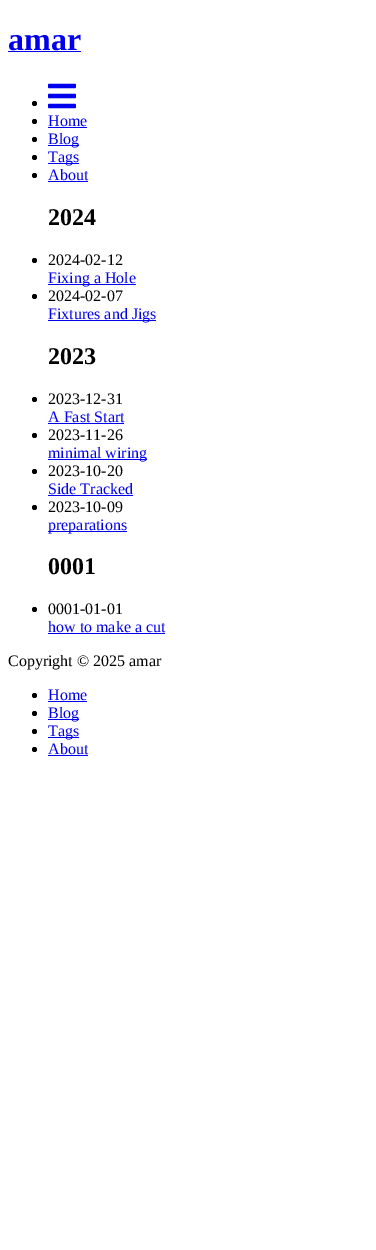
%!PS-Adobe-3.0
%%BoundingBox: 0 0 376 1250
%%LanguageLevel: 3
%%Pages: 1
%%EndComments
%%BeginProlog
/f { fill } bind def
/fn { [ exch dup neg 0 0 3 -1 roll 0 0 ] selectfont } def
/tx { moveto show } def
/bx { rectfill } def
/ci { newpath 0 360 arc closepath } def
/im { 5 dict begin { /h /w /y /x /name } { exch def } forall
  gsave x y translate w h scale
  w h 8 [w 0 0 h 0 0] name (r) file false 3 colorimage grestore end } def
%%EndProlog
%%BeginSetup
<< /PageSize [376 1250] >> setpagedevice
%%EndSetup
%%Page: 1 1
0 1250 translate 1 -1 scale
4 setmiterlimit
1 setgray
0 0 376 1250 bx
/LiberationSerif-Bold 32 fn
0 0 0.933 setrgbcolor
(amar) 8 50 tx
8 51 73 1 bx
0 setgray
34.5 103.5 2.5 ci f
(image0.raw) 48 83 28 26 im
34.5 121.5 2.5 ci f
/LiberationSerif-Regular 16 fn
0 0 0.933 setrgbcolor
(Home) 48 126 tx
48 127 39 1 bx
0 setgray
34.5 139.5 2.5 ci f
0 0 0.933 setrgbcolor
48 145 31 1 bx
(Blog) 48 144 tx
0 setgray
34.5 157.5 2.5 ci f
0 0 0.933 setrgbcolor
48 163 31 1 bx
(Tags) 48 162 tx
0 setgray
34.5 175.5 2.5 ci f
0 0 0.933 setrgbcolor
(About) 48 180 tx
48 181 40 1 bx
/LiberationSerif-Bold 24 fn
0 setgray
(2024) 48 225 tx
34.5 260.5 2.5 ci f
/LiberationSerif-Regular 16 fn
(2024-02-12) 48 265 tx
0 0 0.933 setrgbcolor
48 284 88 1 bx
(Fixing a Hole) 48 283 tx
0 setgray
34.5 296.5 2.5 ci f
(2024-02-07) 48 301 tx
0 0 0.933 setrgbcolor
48 320 108 1 bx
(Fixtures and Jigs) 48 319 tx
/LiberationSerif-Bold 24 fn
0 setgray
(2023) 48 364 tx
34.5 399.5 2.5 ci f
/LiberationSerif-Regular 16 fn
(2023-12-31) 48 404 tx
0 0 0.933 setrgbcolor
(A Fast Start) 48 422 tx
48 423 76 1 bx
0 setgray
34.5 435.5 2.5 ci f
(2023-11-26) 48 440 tx
0 0 0.933 setrgbcolor
48 459 99 1 bx
(minimal wiring) 48 458 tx
0 setgray
34.5 471.5 2.5 ci f
(2023-10-20) 48 476 tx
0 0 0.933 setrgbcolor
(Side Tracked) 48 494 tx
48 495 85 1 bx
0 setgray
34.5 507.5 2.5 ci f
(2023-10-09) 48 512 tx
0 0 0.933 setrgbcolor
48 531 79 1 bx
(preparations) 48 530 tx
/LiberationSerif-Bold 24 fn
0 setgray
(0001) 48 574 tx
34.5 609.5 2.5 ci f
/LiberationSerif-Regular 16 fn
(0001-01-01) 48 614 tx
0 0 0.933 setrgbcolor
(how to make a cut) 48 632 tx
48 633 117 1 bx
0 setgray
(Copyright © 2025 amar) 8 666 tx
34.5 695.5 2.5 ci f
0 0 0.933 setrgbcolor
(Home) 48 700 tx
48 701 39 1 bx
0 setgray
34.5 713.5 2.5 ci f
0 0 0.933 setrgbcolor
48 719 31 1 bx
(Blog) 48 718 tx
0 setgray
34.5 731.5 2.5 ci f
0 0 0.933 setrgbcolor
48 737 31 1 bx
(Tags) 48 736 tx
0 setgray
34.5 749.5 2.5 ci f
0 0 0.933 setrgbcolor
(About) 48 754 tx
48 755 40 1 bx
showpage
%%EOF
